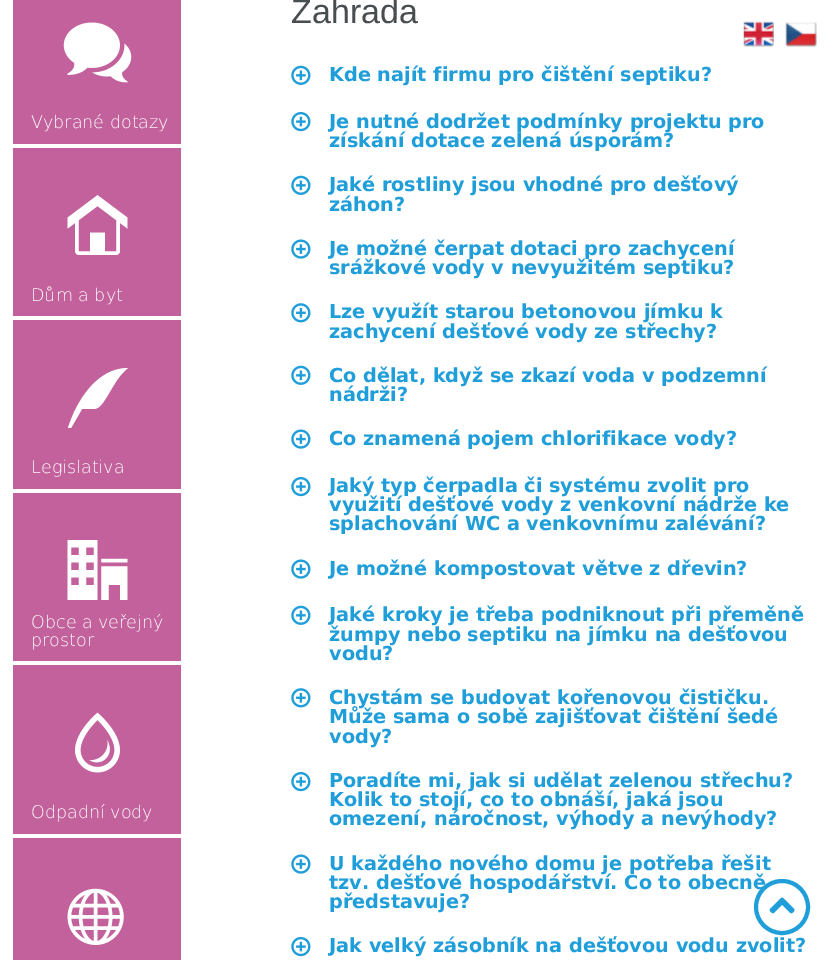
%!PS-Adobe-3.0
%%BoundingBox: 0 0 834 960
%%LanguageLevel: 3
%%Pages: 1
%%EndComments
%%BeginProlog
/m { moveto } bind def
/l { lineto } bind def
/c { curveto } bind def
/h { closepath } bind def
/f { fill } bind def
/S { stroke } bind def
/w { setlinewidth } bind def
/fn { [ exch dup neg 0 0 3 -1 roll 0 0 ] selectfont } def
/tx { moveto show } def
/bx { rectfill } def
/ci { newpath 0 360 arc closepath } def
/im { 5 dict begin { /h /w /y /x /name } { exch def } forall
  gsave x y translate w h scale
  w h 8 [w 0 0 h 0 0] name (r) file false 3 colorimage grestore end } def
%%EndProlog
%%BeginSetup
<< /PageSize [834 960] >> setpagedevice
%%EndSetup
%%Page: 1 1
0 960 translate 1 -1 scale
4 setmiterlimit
1 setgray
0 0 834 960 bx
0.761 0.38 0.608 setrgbcolor
13 0 168 144 bx
(image0.raw) 63 22 69 61 im
/DejaVuSans-ExtraLight 17.5 fn
1 setgray
(Vybrané dotazy) 31 128 tx
0.761 0.38 0.608 setrgbcolor
13 148 168 168 bx
(image1.raw) 67 195 61 60 im
1 setgray
(Dům a byt) 31 301 tx
0.761 0.38 0.608 setrgbcolor
13 320 168 169 bx
1 setgray
68 428 m 75 405 95 368 128 368 c 112 380 105 409 94 409 c 82 409 l 71 428 l h f
(Legislativa) 31 473 tx
0.761 0.38 0.608 setrgbcolor
13 493 168 168 bx
(image2.raw) 67 540 61 60 im
1 setgray
(Obce a veřejný) 31 628 tx
(prostor) 31 646 tx
0.761 0.38 0.608 setrgbcolor
13 665 168 169 bx
(image3.raw) 75 712 45 61 im
1 setgray
(Odpadní vody) 31 818 tx
0.761 0.38 0.608 setrgbcolor
13 838 168 122 bx
(image4.raw) 67 888 57 57 im
/LiberationSans-Regular 34 fn
0.282 0.306 0.314 setrgbcolor
(Zahrada) 291 23 tx
(image5.raw) 291 65 20 20 im
/DejaVuSans-Bold 19.25 fn
0.122 0.62 0.851 setrgbcolor
(Kde najít firmu pro čištění septiku?) 329 81 tx
(image6.raw) 291 112 20 20 im
(Je nutné dodržet podmínky projektu pro) 329 128 tx
(získání dotace zelená úsporám?) 329 147 tx
(image5.raw) 291 175 20 20 im
(Jaké rostliny jsou vhodné pro dešťový) 329 191 tx
(záhon?) 329 211 tx
(image7.raw) 291 239 20 20 im
(Je možné čerpat dotaci pro zachycení) 329 255 tx
(srážkové vody v nevyužitém septiku?) 329 274 tx
(image8.raw) 291 303 20 20 im
(Lze využít starou betonovou jímku k) 329 318 tx
(zachycení dešťové vody ze střechy?) 329 338 tx
(image5.raw) 291 365 20 20 im
(Co dělat, když se zkazí voda v podzemní) 329 382 tx
(nádrži?) 329 401 tx
(image7.raw) 291 429 20 20 im
(Co znamená pojem chlorifikace vody?) 329 445 tx
(image6.raw) 291 477 20 20 im
(Jaký typ čerpadla či systému zvolit pro) 329 492 tx
(využití dešťové vody z venkovní nádrže ke) 329 511 tx
(splachování WC a venkovnímu zalévání?) 329 530 tx
(image7.raw) 291 559 20 20 im
(Je možné kompostovat větve z dřevin?) 329 575 tx
(image5.raw) 291 605 20 20 im
(Jaké kroky je třeba podniknout při přeměně) 329 621 tx
(žumpy nebo septiku na jímku na dešťovou) 329 641 tx
(vodu?) 329 660 tx
(image8.raw) 291 688 20 20 im
(Chystám se budovat kořenovou čističku.) 329 704 tx
(Může sama o sobě zajišťovat čištění šedé) 329 723 tx
(vody?) 329 743 tx
(image6.raw) 291 772 20 20 im
(Poradíte mi, jak si udělat zelenou střechu?) 329 787 tx
(Kolik to stojí, co to obnáší, jaká jsou) 329 806 tx
(omezení, náročnost, výhody a nevýhody?) 329 825 tx
(image7.raw) 291 854 20 20 im
(U každého nového domu je potřeba řešit) 329 870 tx
(tzv. dešťové hospodářství. Co to obecně) 329 889 tx
(představuje?) 329 908 tx
(image6.raw) 291 937 20 20 im
(Jak velký zásobník na dešťovou vodu zvolit?) 329 952 tx
(image9.raw) 743 21 31 26 im
(image10.raw) 785 22 32 25 im
4 w
782 907 26 ci S
(image11.raw) 769 897 26 17 im
showpage
%%EOF
